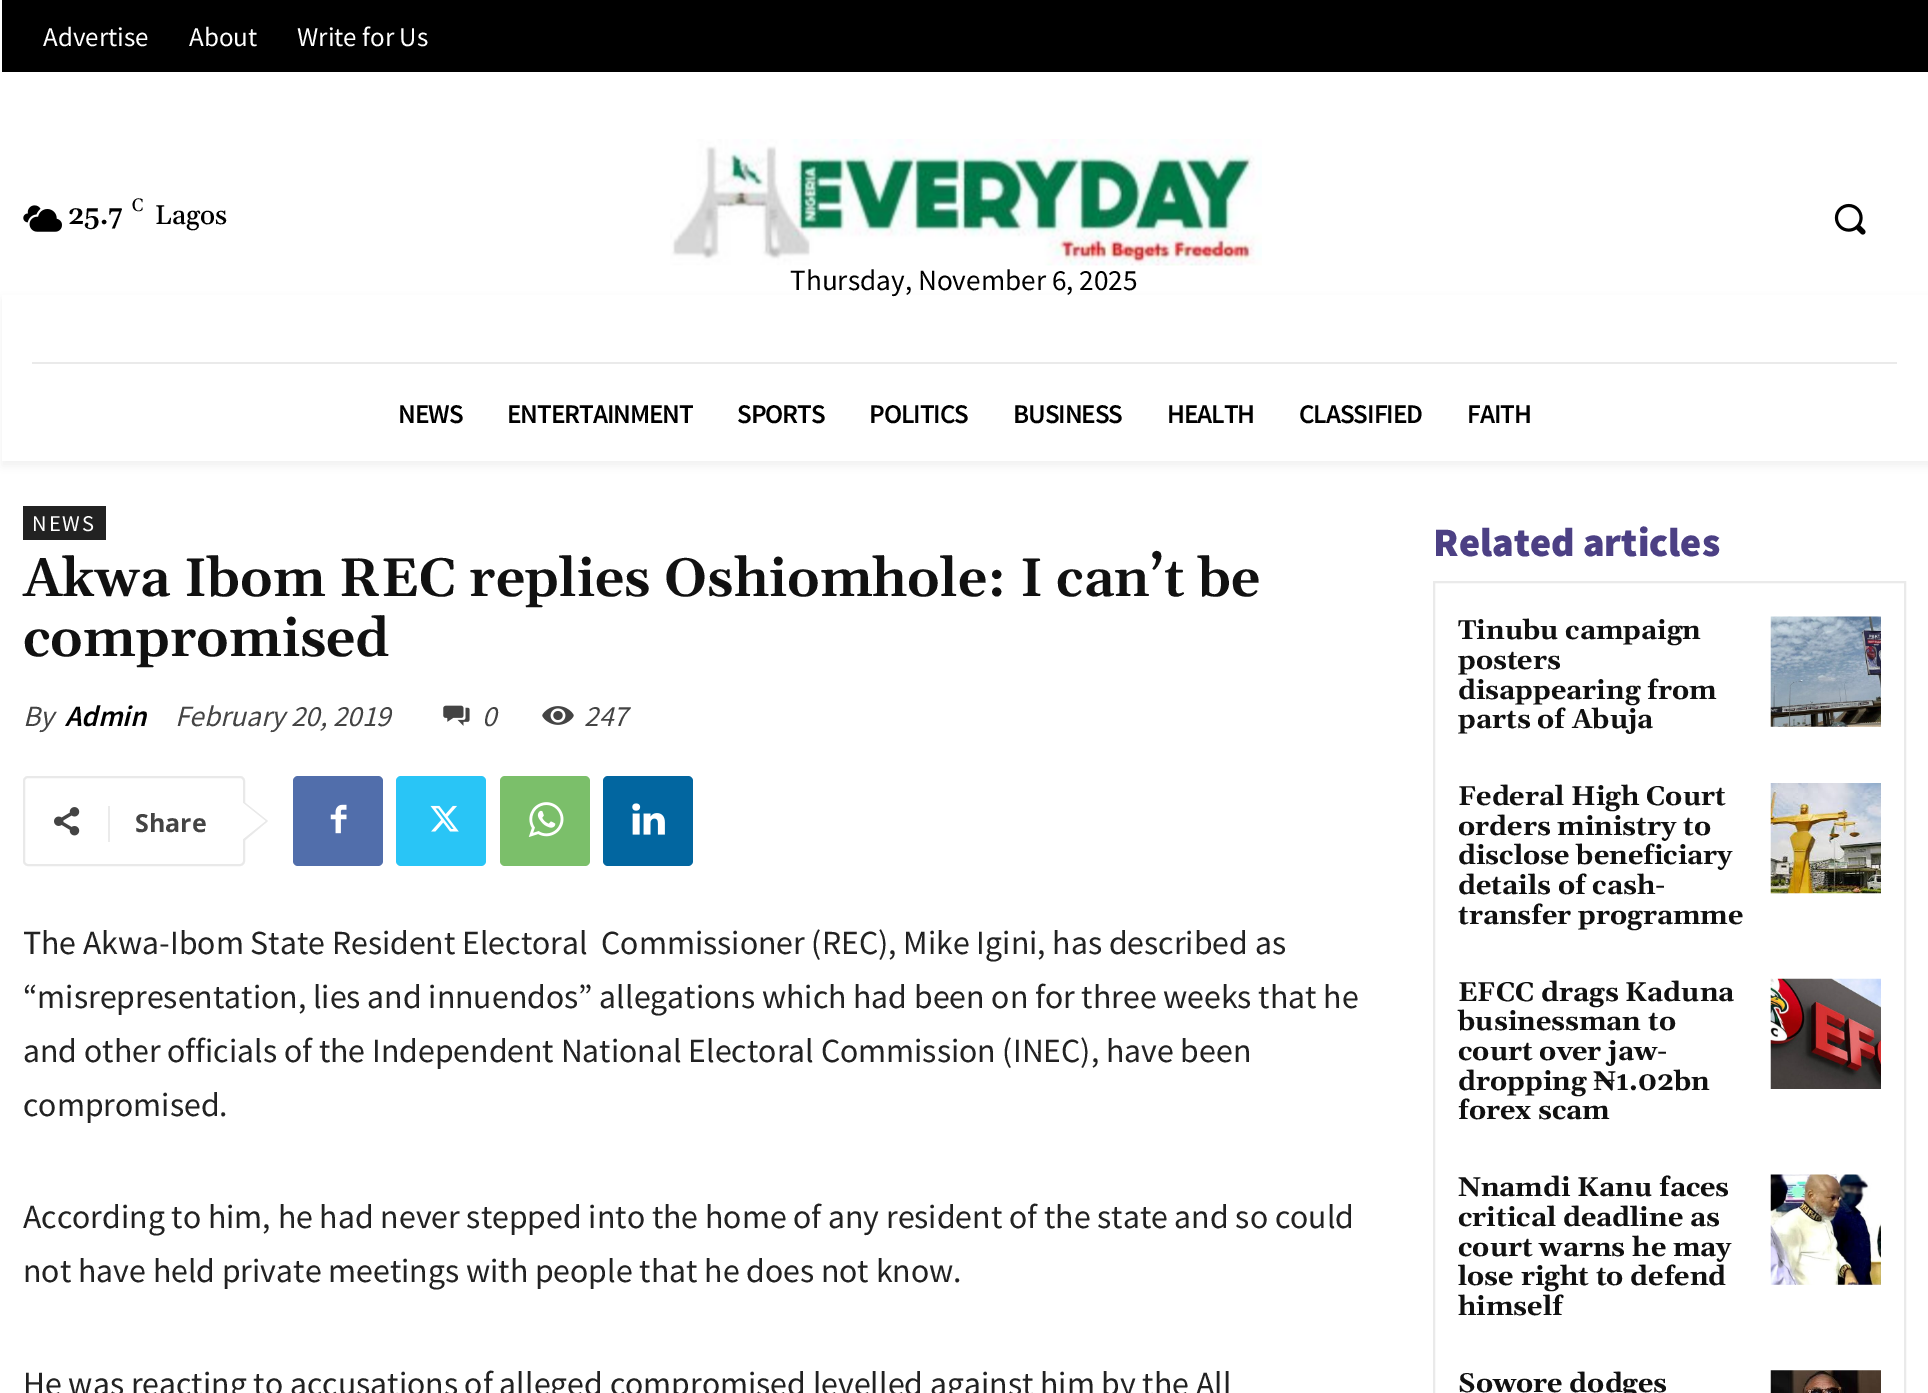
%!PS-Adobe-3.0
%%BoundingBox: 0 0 1928 1393
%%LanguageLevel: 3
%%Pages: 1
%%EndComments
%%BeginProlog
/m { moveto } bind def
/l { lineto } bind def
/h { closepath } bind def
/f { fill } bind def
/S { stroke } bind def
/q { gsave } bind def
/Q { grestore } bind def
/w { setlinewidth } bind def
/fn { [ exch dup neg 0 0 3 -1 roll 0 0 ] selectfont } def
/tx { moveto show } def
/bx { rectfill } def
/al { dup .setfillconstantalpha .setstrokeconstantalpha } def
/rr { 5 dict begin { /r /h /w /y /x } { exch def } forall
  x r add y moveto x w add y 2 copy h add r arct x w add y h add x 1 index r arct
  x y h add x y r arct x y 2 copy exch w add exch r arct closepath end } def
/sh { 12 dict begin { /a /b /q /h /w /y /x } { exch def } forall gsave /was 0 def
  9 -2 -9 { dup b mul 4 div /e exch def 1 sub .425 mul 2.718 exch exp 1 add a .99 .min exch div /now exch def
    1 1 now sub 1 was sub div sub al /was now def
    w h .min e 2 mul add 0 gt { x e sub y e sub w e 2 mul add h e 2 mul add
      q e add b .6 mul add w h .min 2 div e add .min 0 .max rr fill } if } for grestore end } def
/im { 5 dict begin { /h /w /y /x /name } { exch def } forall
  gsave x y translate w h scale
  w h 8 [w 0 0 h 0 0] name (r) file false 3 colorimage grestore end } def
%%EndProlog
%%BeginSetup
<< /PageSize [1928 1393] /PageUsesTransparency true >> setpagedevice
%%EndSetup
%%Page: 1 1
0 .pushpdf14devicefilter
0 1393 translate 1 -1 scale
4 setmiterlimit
1 setgray
0 0 1928 1393 bx
0 setgray
2 0 1926 72 bx
/SourceSansPro-Regular 27 fn
1 setgray
(Advertise) 43 46 tx
(About) 189 46 tx
(Write for Us) 297 46 tx
(image0.raw) 23 205 39 27 im
/Gelasio-Regular 18 fn
0 setgray
(C) 132 211 tx
/Gelasio-SemiBold 27 fn
(25.7) 68 224 tx
/Gelasio-Medium 27 fn
(Lagos) 155 224 tx
(image1.raw) 1834 203 32 32 im
(image2.raw) 670 139 592 127 im
/SourceSansPro-Regular 29.25 fn
(Thursday, November 6, 2025) 790 290 tx
0.918 setgray
32 362 1865 2 bx
q
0 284 m 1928 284 l 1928 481 l 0 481 l h 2 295 m 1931 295 l 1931 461 l 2 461 l h eoclip newpath
0 setgray
2 299 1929 167 0 4.5 0.06 sh
Q
/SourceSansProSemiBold-SemiBold 27 fn
0 setgray
398 423 m -1.1 0 (NEWS) ashow
507 423 m -1.1 0 (ENTERTAINMENT) ashow
737 423 m -1.1 0 (SPORTS) ashow
869 423 m -1.1 0 (POLITICS) ashow
1013 423 m -1.1 0 (BUSINESS) ashow
1167 423 m -1.1 0 (HEALTH) ashow
1299 423 m -1.1 0 (CLASSIFIED) ashow
1467 423 m -1.1 0 (FAITH) ashow
0.133 setgray
23 506 83 34 bx
/SourceSansPro-Regular 22.5 fn
1 setgray
32 531 m 2 0 (NEWS) ashow
/Gelasio-SemiBold 54 fn
0.067 setgray
(Akwa Ibom REC replies Oshiomhole: I can’t be) 23 596 tx
(compromised) 23 656 tx
/SourceSansPro-Italic 29.25 fn
0.267 setgray
(By) 23 726 tx
/SourceSansProSemiBold-SemiBoldItalic 29.25 fn
0 setgray
(Admin) 65 726 tx
/SourceSansPro-Italic 29.25 fn
0.267 setgray
(February 20, 2019) 175 726 tx
(image3.raw) 443 705 27 21 im
(0) 482 726 tx
(image4.raw) 542 706 32 19 im
(247) 584 726 tx
0.914 setgray
2 w
24 777 220 88 4 rr S
243 842 m 243 801 l 268 821 l h f
(image5.raw) 54 807 26 29 im
0.922 setgray
108 806 2 36 bx
/OpenSans-Bold 25 fn
0.267 setgray
(Share) 135 832 tx
1 setgray
243 839 m 243 803 l 265.5 821 l h f
0.318 0.431 0.671 setrgbcolor
293 776 90 90 5 rr f
(image6.raw) 330 804 17 30 im
0.161 0.773 0.965 setrgbcolor
396 776 90 90 5 rr f
(image7.raw) 430 805 29 27 im
0.482 0.749 0.416 setrgbcolor
500 776 90 90 5 rr f
(image8.raw) 528 802 36 35 im
0.008 0.4 0.627 setrgbcolor
603 776 90 90 5 rr f
(image9.raw) 632 803 33 32 im
/SourceSansPro-Regular 33.75 fn
0.133 setgray
(The Akwa-Ibom State Resident Electoral  Commissioner \(REC\), Mike Igini, has described as) 23 954 tx
(“misrepresentation, lies and innuendos” allegations which had been on for three weeks that he) 23 1008 tx
(and other officials of the Independent National Electoral Commission \(INEC\), have been) 23 1062 tx
(compromised.) 23 1116 tx
(According to him, he had never stepped into the home of any resident of the state and so could) 23 1228 tx
(not have held private meetings with people that he does not know.) 23 1282 tx
(He was reacting to accusations of alleged compromised levelled against him by the All) 23 1395 tx
/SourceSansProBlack-Black 40.5 fn
0.298 0.251 0.518 setrgbcolor
(Related articles) 1433 556 tx
0.918 setgray
1434 582 471 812 rectstroke
/Gelasio-Bold 27 fn
0.067 setgray
(Tinubu campaign) 1458 639 tx
(posters) 1458 669 tx
(disappearing from) 1458 699 tx
(parts of Abuja) 1458 728 tx
(image10.raw) 1770 616 111 111 im
(Federal High Court) 1458 805 tx
(orders ministry to) 1458 835 tx
(disclose beneficiary) 1458 864 tx
(details of cash-) 1458 894 tx
(transfer programme) 1458 924 tx
(image11.raw) 1770 783 111 111 im
(EFCC drags Kaduna) 1458 1001 tx
(businessman to) 1458 1030 tx
(court over jaw-) 1458 1060 tx
(dropping ₦1.02bn) 1458 1090 tx
(forex scam) 1458 1119 tx
(image12.raw) 1770 978 111 111 im
(Nnamdi Kanu faces) 1458 1196 tx
(critical deadline as) 1458 1226 tx
(court warns he may) 1458 1256 tx
(lose right to defend) 1458 1285 tx
(himself) 1458 1315 tx
(image13.raw) 1770 1174 111 111 im
(Sowore dodges) 1458 1392 tx
(image14.raw) 1770 1370 111 23 im
.poppdf14devicefilter showpage
%%EOF
